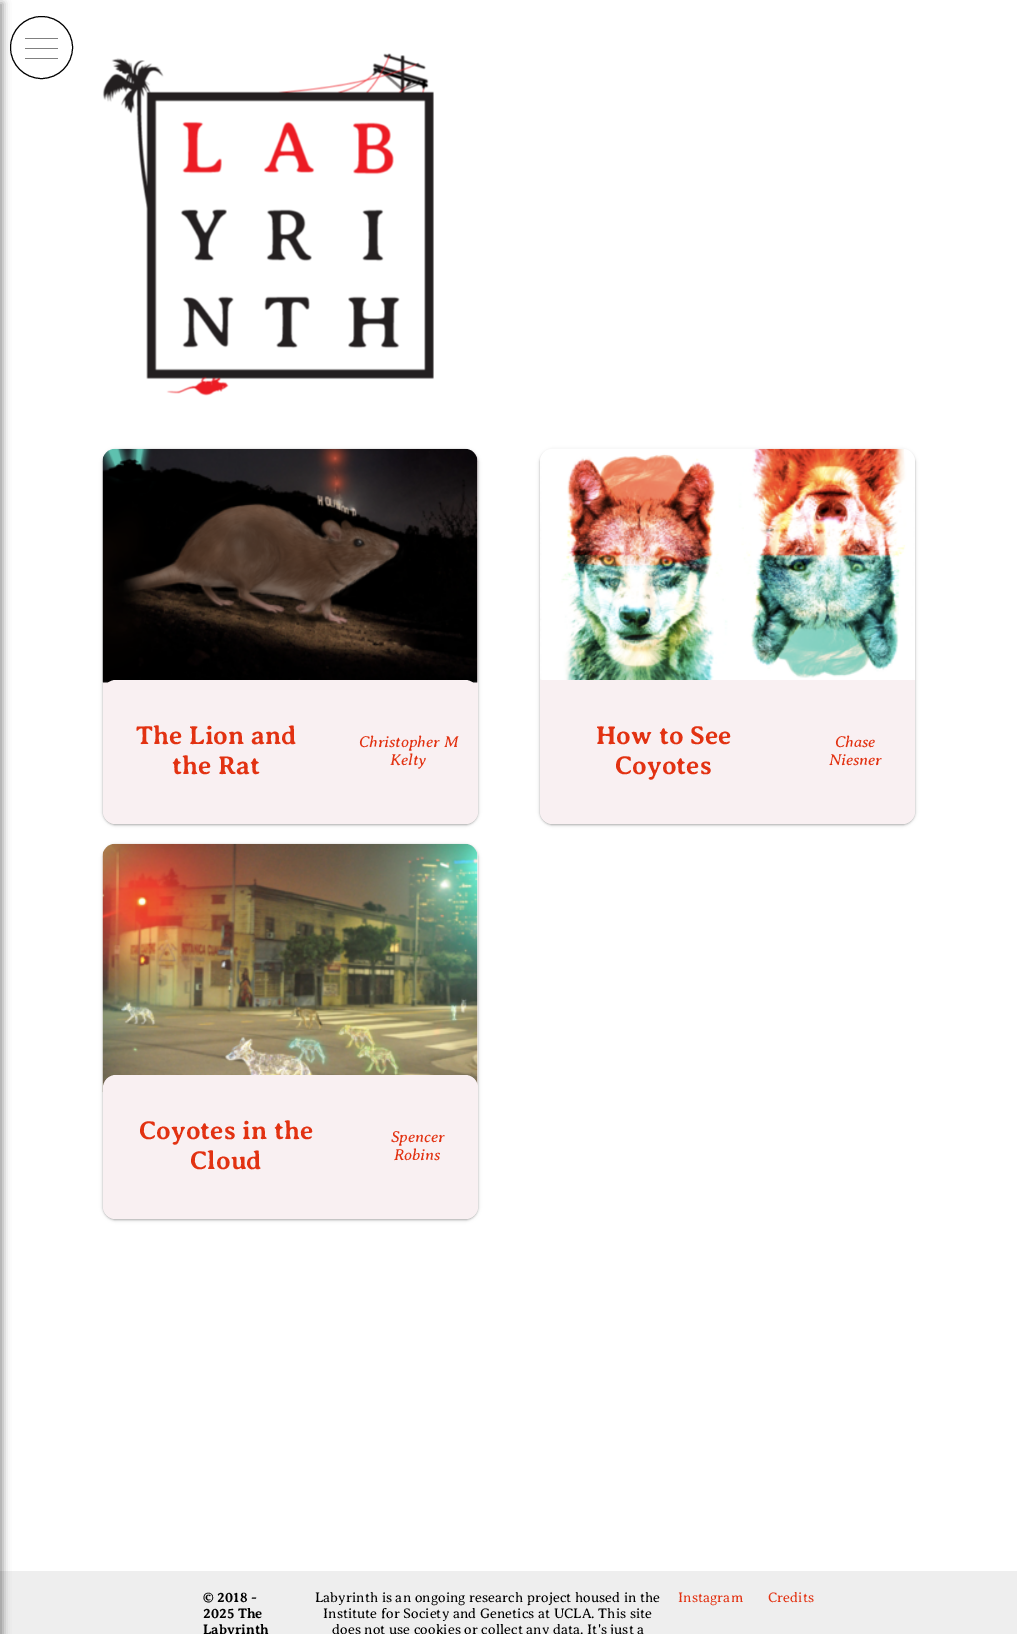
%!PS-Adobe-3.0
%%BoundingBox: 0 0 1017 1634
%%LanguageLevel: 3
%%Pages: 1
%%EndComments
%%BeginProlog
/f { fill } bind def
/S { stroke } bind def
/q { gsave } bind def
/Q { grestore } bind def
/fn { [ exch dup neg 0 0 3 -1 roll 0 0 ] selectfont } def
/tx { moveto show } def
/bx { rectfill } def
/al { dup .setfillconstantalpha .setstrokeconstantalpha } def
/ci { newpath 0 360 arc closepath } def
/rr { 5 dict begin { /r /h /w /y /x } { exch def } forall
  x r add y moveto x w add y 2 copy h add r arct x w add y h add x 1 index r arct
  x y h add x y r arct x y 2 copy exch w add exch r arct closepath end } def
/sh { 12 dict begin { /a /b /q /h /w /y /x } { exch def } forall gsave /was 0 def
  9 -2 -9 { dup b mul 4 div /e exch def 1 sub .425 mul 2.718 exch exp 1 add a .99 .min exch div /now exch def
    1 1 now sub 1 was sub div sub al /was now def
    w h .min e 2 mul add 0 gt { x e sub y e sub w e 2 mul add h e 2 mul add
      q e add b .6 mul add w h .min 2 div e add .min 0 .max rr fill } if } for grestore end } def
/im { 5 dict begin { /h /w /y /x /name } { exch def } forall
  gsave x y translate w h scale
  w h 8 [w 0 0 h 0 0] name (r) file false 3 colorimage grestore end } def
%%EndProlog
%%BeginSetup
<< /PageSize [1017 1634] /PageUsesTransparency true >> setpagedevice
%%EndSetup
%%Page: 1 1
0 .pushpdf14devicefilter
0 1634 translate 1 -1 scale
4 setmiterlimit
1 setgray
0 0 1017 1634 bx
0.933 setgray
0 1571 1017 63 bx
0 setgray
-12 3 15 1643 0 4 0.4 sh
1 setgray
41.5 47.5 31 ci q f Q
0 setgray
S
0.502 setgray
25 48 33 1 bx
25 38 33 1 bx
25 58 33 1 bx
(image0.raw) 102 53 332 343 im
0 setgray
103 450 375 375 13 1 0.24 sh
103 450 375 375 13 2 0.12 sh
0.976 0.941 0.949 setrgbcolor
103 449 375 375 13 rr f
(image1.raw) 102 448 376 235 im
103 680 375 144 13 rr f
/AveriaSerifLibre-Bold 26 fn
0.886 0.196 0.071 setrgbcolor
(The Lion and) 136 744 tx
(the Rat) 172 774 tx
/AveriaSerifLibre-Italic 16 fn
(Christopher M) 359 747 tx
(Kelty) 390 765 tx
0 setgray
540 450 375 375 13 1 0.24 sh
540 450 375 375 13 2 0.12 sh
0.976 0.941 0.949 setrgbcolor
540 449 375 375 13 rr f
(image2.raw) 540 448 375 232 im
540 680 375 144 13 rr f
/AveriaSerifLibre-Bold 26 fn
0.886 0.196 0.071 setrgbcolor
(How to See) 596 744 tx
(Coyotes) 615 774 tx
/AveriaSerifLibre-Italic 16 fn
(Chase) 835 747 tx
(Niesner) 829 765 tx
0 setgray
103 845 375 375 13 1 0.24 sh
103 845 375 375 13 2 0.12 sh
0.976 0.941 0.949 setrgbcolor
103 844 375 375 13 rr f
(image3.raw) 102 843 376 250 im
103 1075 375 144 13 rr f
/AveriaSerifLibre-Bold 26 fn
0.886 0.196 0.071 setrgbcolor
(Coyotes in the) 139 1139 tx
(Cloud) 190 1169 tx
/AveriaSerifLibre-Italic 16 fn
(Spencer) 391 1142 tx
(Robins) 394 1160 tx
/AveriaSerifLibre-Bold 14 fn
0 setgray
(© 2018 -) 203 1602 tx
(2025 The) 203 1618 tx
(Labyrinth) 203 1634 tx
/AveriaSerifLibre-Light 14 fn
(Labyrinth is an ongoing research project housed in the) 315 1602 tx
(Institute for Society and Genetics at UCLA. This site) 323 1618 tx
(does not use cookies or collect any data. It's just a) 332 1634 tx
0.886 0.196 0.071 setrgbcolor
(Instagram) 678 1602 tx
(Credits) 768 1602 tx
.poppdf14devicefilter showpage
%%EOF
